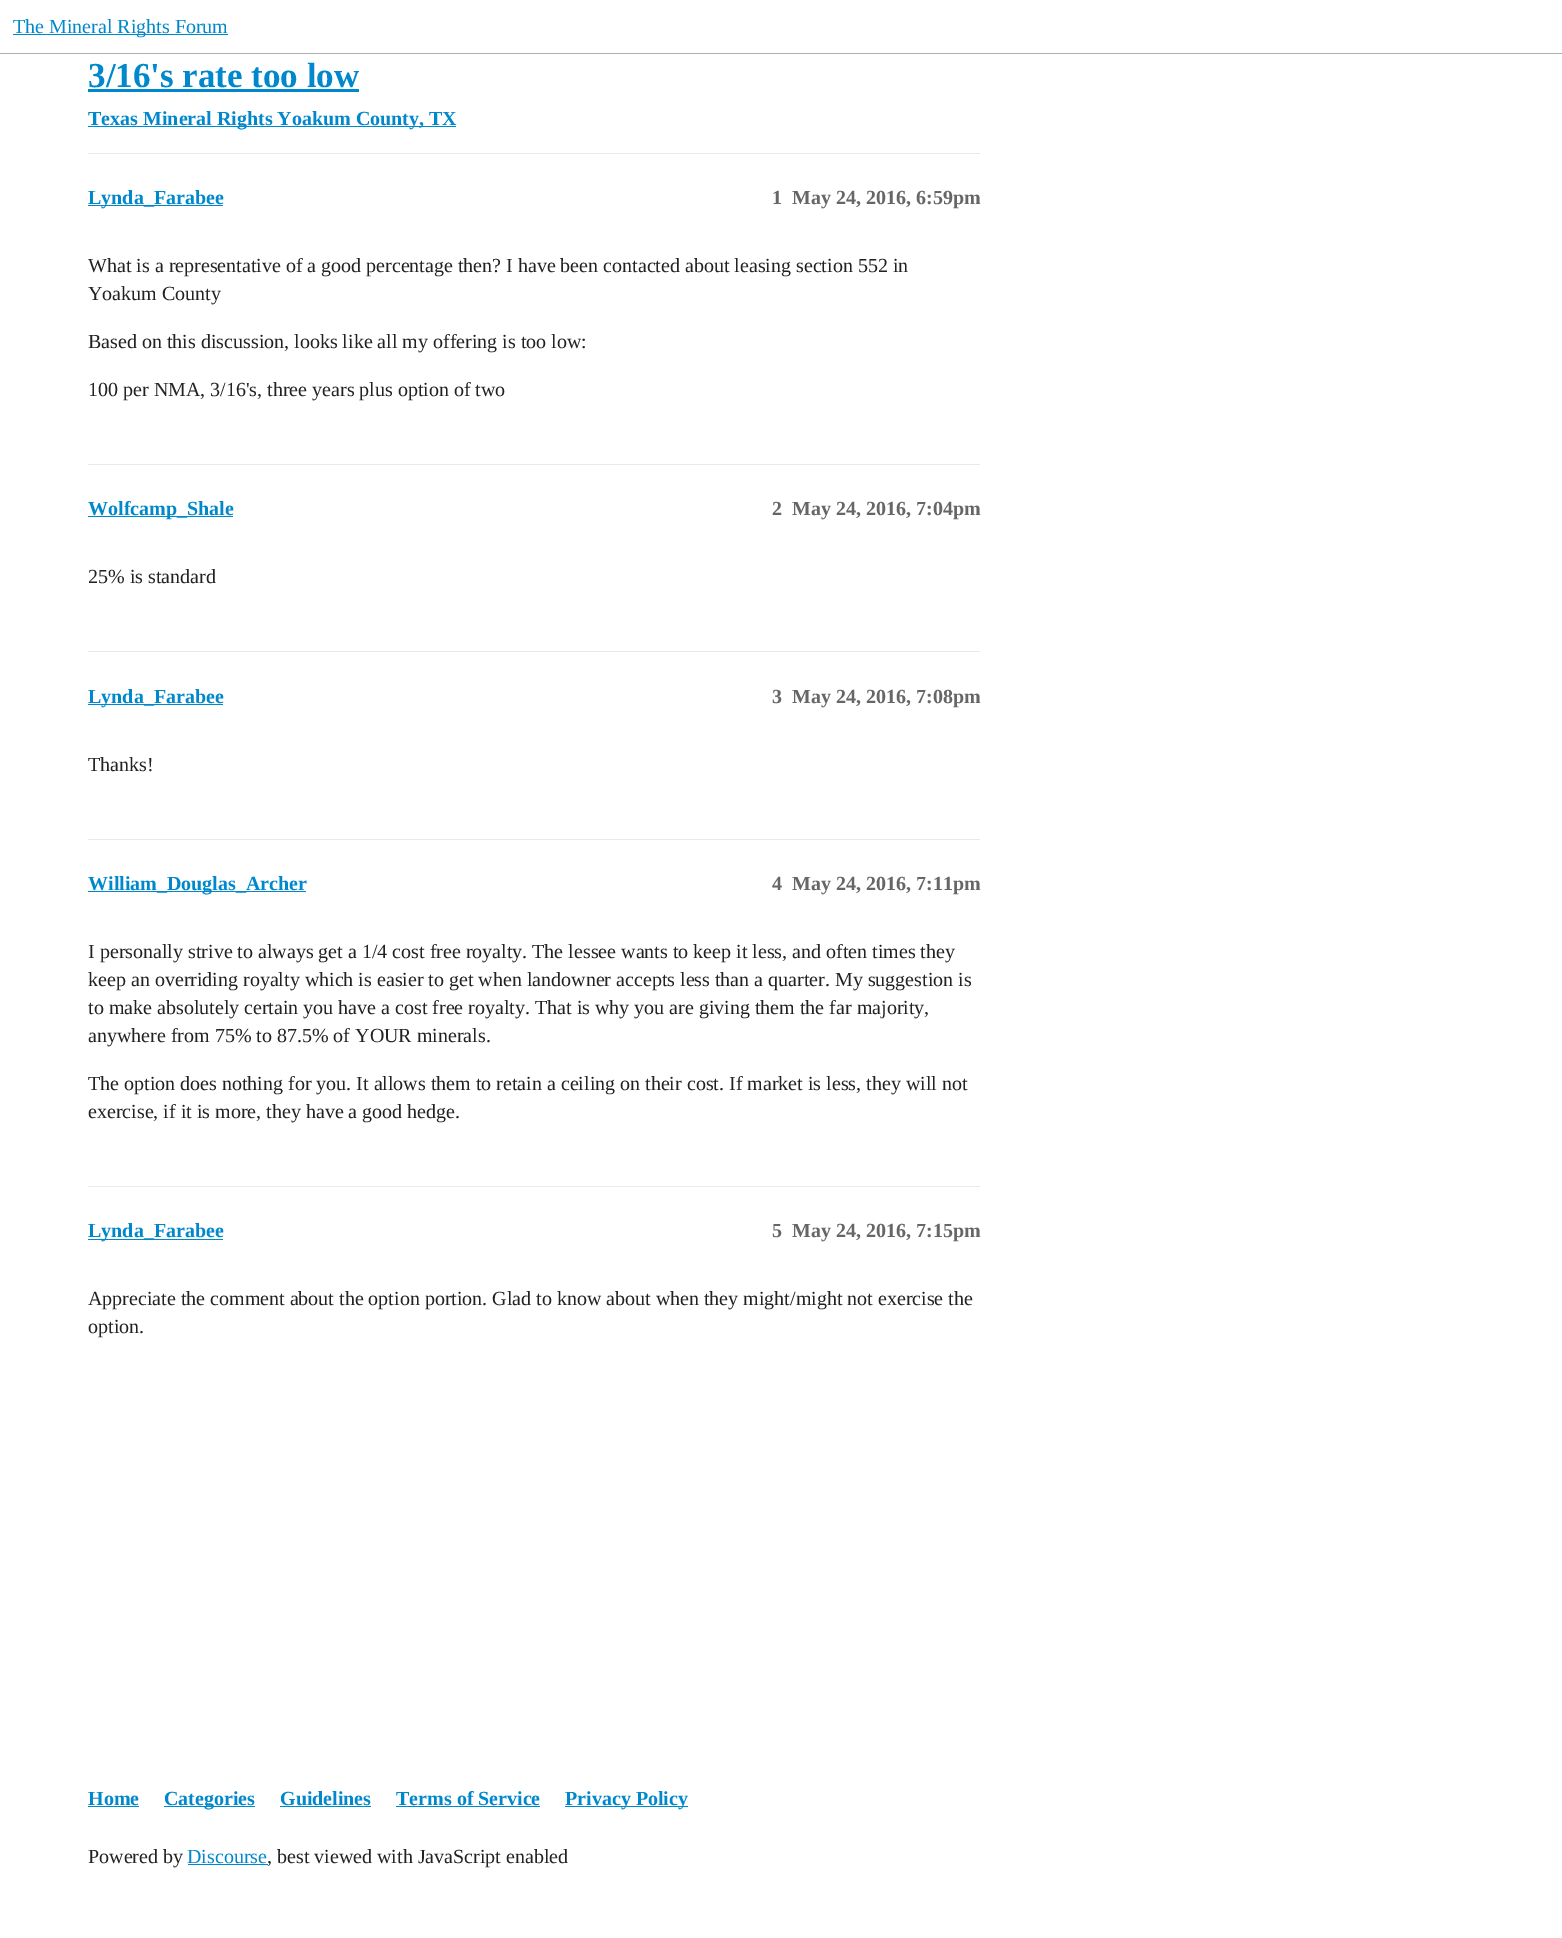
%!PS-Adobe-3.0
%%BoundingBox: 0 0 1562 1938
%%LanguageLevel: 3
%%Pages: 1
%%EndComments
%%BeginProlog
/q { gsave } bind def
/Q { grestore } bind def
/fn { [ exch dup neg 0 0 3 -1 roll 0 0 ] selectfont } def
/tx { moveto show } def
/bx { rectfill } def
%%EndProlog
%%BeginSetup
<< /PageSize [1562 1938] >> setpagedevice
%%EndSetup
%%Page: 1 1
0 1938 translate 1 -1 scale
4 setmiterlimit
1 setgray
0 0 1562 1938 bx
0.686 setgray
0 53 1562 1 bx
0 0.533 0.8 setrgbcolor
13 34 215 1 bx
/LiberationSerif-Regular 20 fn
(The Mineral Rights Forum) 13 33 tx
/LiberationSerif-Bold 35 fn
(3/16's rate too low) 88 87 tx
88 89 271 3 bx
88 126 368 1 bx
/LiberationSerif-Bold 20 fn
(Texas Mineral Rights Yoakum County, TX) 88 125 tx
0.914 setgray
88 153 892 1 bx
0 0.533 0.8 setrgbcolor
88 205 135 1 bx
(Lynda_Farabee) 88 204 tx
0.4 setgray
(1) 772 204 tx
(May 24, 2016, 6:59pm) 792 204 tx
/LiberationSerif-Regular 20 fn
0.133 setgray
(What is a representative of a good percentage then? I have been contacted about leasing section 552 in) 88 272 tx
(Yoakum County) 88 300 tx
(Based on this discussion, looks like all my offering is too low:) 88 348 tx
(100 per NMA, 3/16's, three years plus option of two) 88 396 tx
0.914 setgray
88 464 892 1 bx
0 0.533 0.8 setrgbcolor
88 516 145 1 bx
/LiberationSerif-Bold 20 fn
(Wolfcamp_Shale) 88 515 tx
0.4 setgray
(2) 772 515 tx
(May 24, 2016, 7:04pm) 792 515 tx
/LiberationSerif-Regular 20 fn
0.133 setgray
(25% is standard) 88 583 tx
0.914 setgray
88 651 892 1 bx
0 0.533 0.8 setrgbcolor
88 704 135 1 bx
/LiberationSerif-Bold 20 fn
(Lynda_Farabee) 88 703 tx
0.4 setgray
(3) 772 703 tx
(May 24, 2016, 7:08pm) 792 703 tx
q
88 731 892 68 rectclip
/LiberationSerif-Regular 20 fn
0.133 setgray
(Thanks!) 88 771 tx
Q
0.914 setgray
88 839 892 1 bx
0 0.533 0.8 setrgbcolor
88 891 218 1 bx
(William_Douglas_Archer) 88 890 tx
0.4 setgray
(4) 772 890 tx
(May 24, 2016, 7:11pm) 792 890 tx
/LiberationSerif-Regular 20 fn
0.133 setgray
(I personally strive to always get a 1/4 cost free royalty. The lessee wants to keep it less, and often times they) 88 958 tx
(keep an overriding royalty which is easier to get when landowner accepts less than a quarter. My suggestion is) 88 986 tx
(to make absolutely certain you have a cost free royalty. That is why you are giving them the far majority,) 88 1014 tx
(anywhere from 75% to 87.5% of YOUR minerals.) 88 1042 tx
q
88 918 892 228 rectclip
(The option does nothing for you. It allows them to retain a ceiling on their cost. If market is less, they will not) 88 1090 tx
Q
(exercise, if it is more, they have a good hedge.) 88 1118 tx
0.914 setgray
88 1186 892 1 bx
0 0.533 0.8 setrgbcolor
88 1239 135 1 bx
/LiberationSerif-Bold 20 fn
(Lynda_Farabee) 88 1237 tx
0.4 setgray
(5) 772 1237 tx
(May 24, 2016, 7:15pm) 792 1237 tx
/LiberationSerif-Regular 20 fn
0.133 setgray
(Appreciate the comment about the option portion. Glad to know about when they might/might not exercise the) 88 1305 tx
(option.) 88 1333 tx
/LiberationSerif-Bold 20 fn
0 0.533 0.8 setrgbcolor
(Home) 88 1805 tx
88 1806 51 1 bx
164 1806 91 1 bx
(Categories) 164 1805 tx
(Guidelines) 280 1805 tx
280 1806 91 1 bx
(Terms of Service) 396 1805 tx
396 1806 144 1 bx
565 1806 123 1 bx
(Privacy Policy) 565 1805 tx
/LiberationSerif-Regular 20 fn
0.133 setgray
(Powered by) 88 1863 tx
0 0.533 0.8 setrgbcolor
(Discourse) 187 1863 tx
188 1864 80 1 bx
0.133 setgray
(, best viewed with JavaScript enabled) 267 1863 tx
showpage
%%EOF
